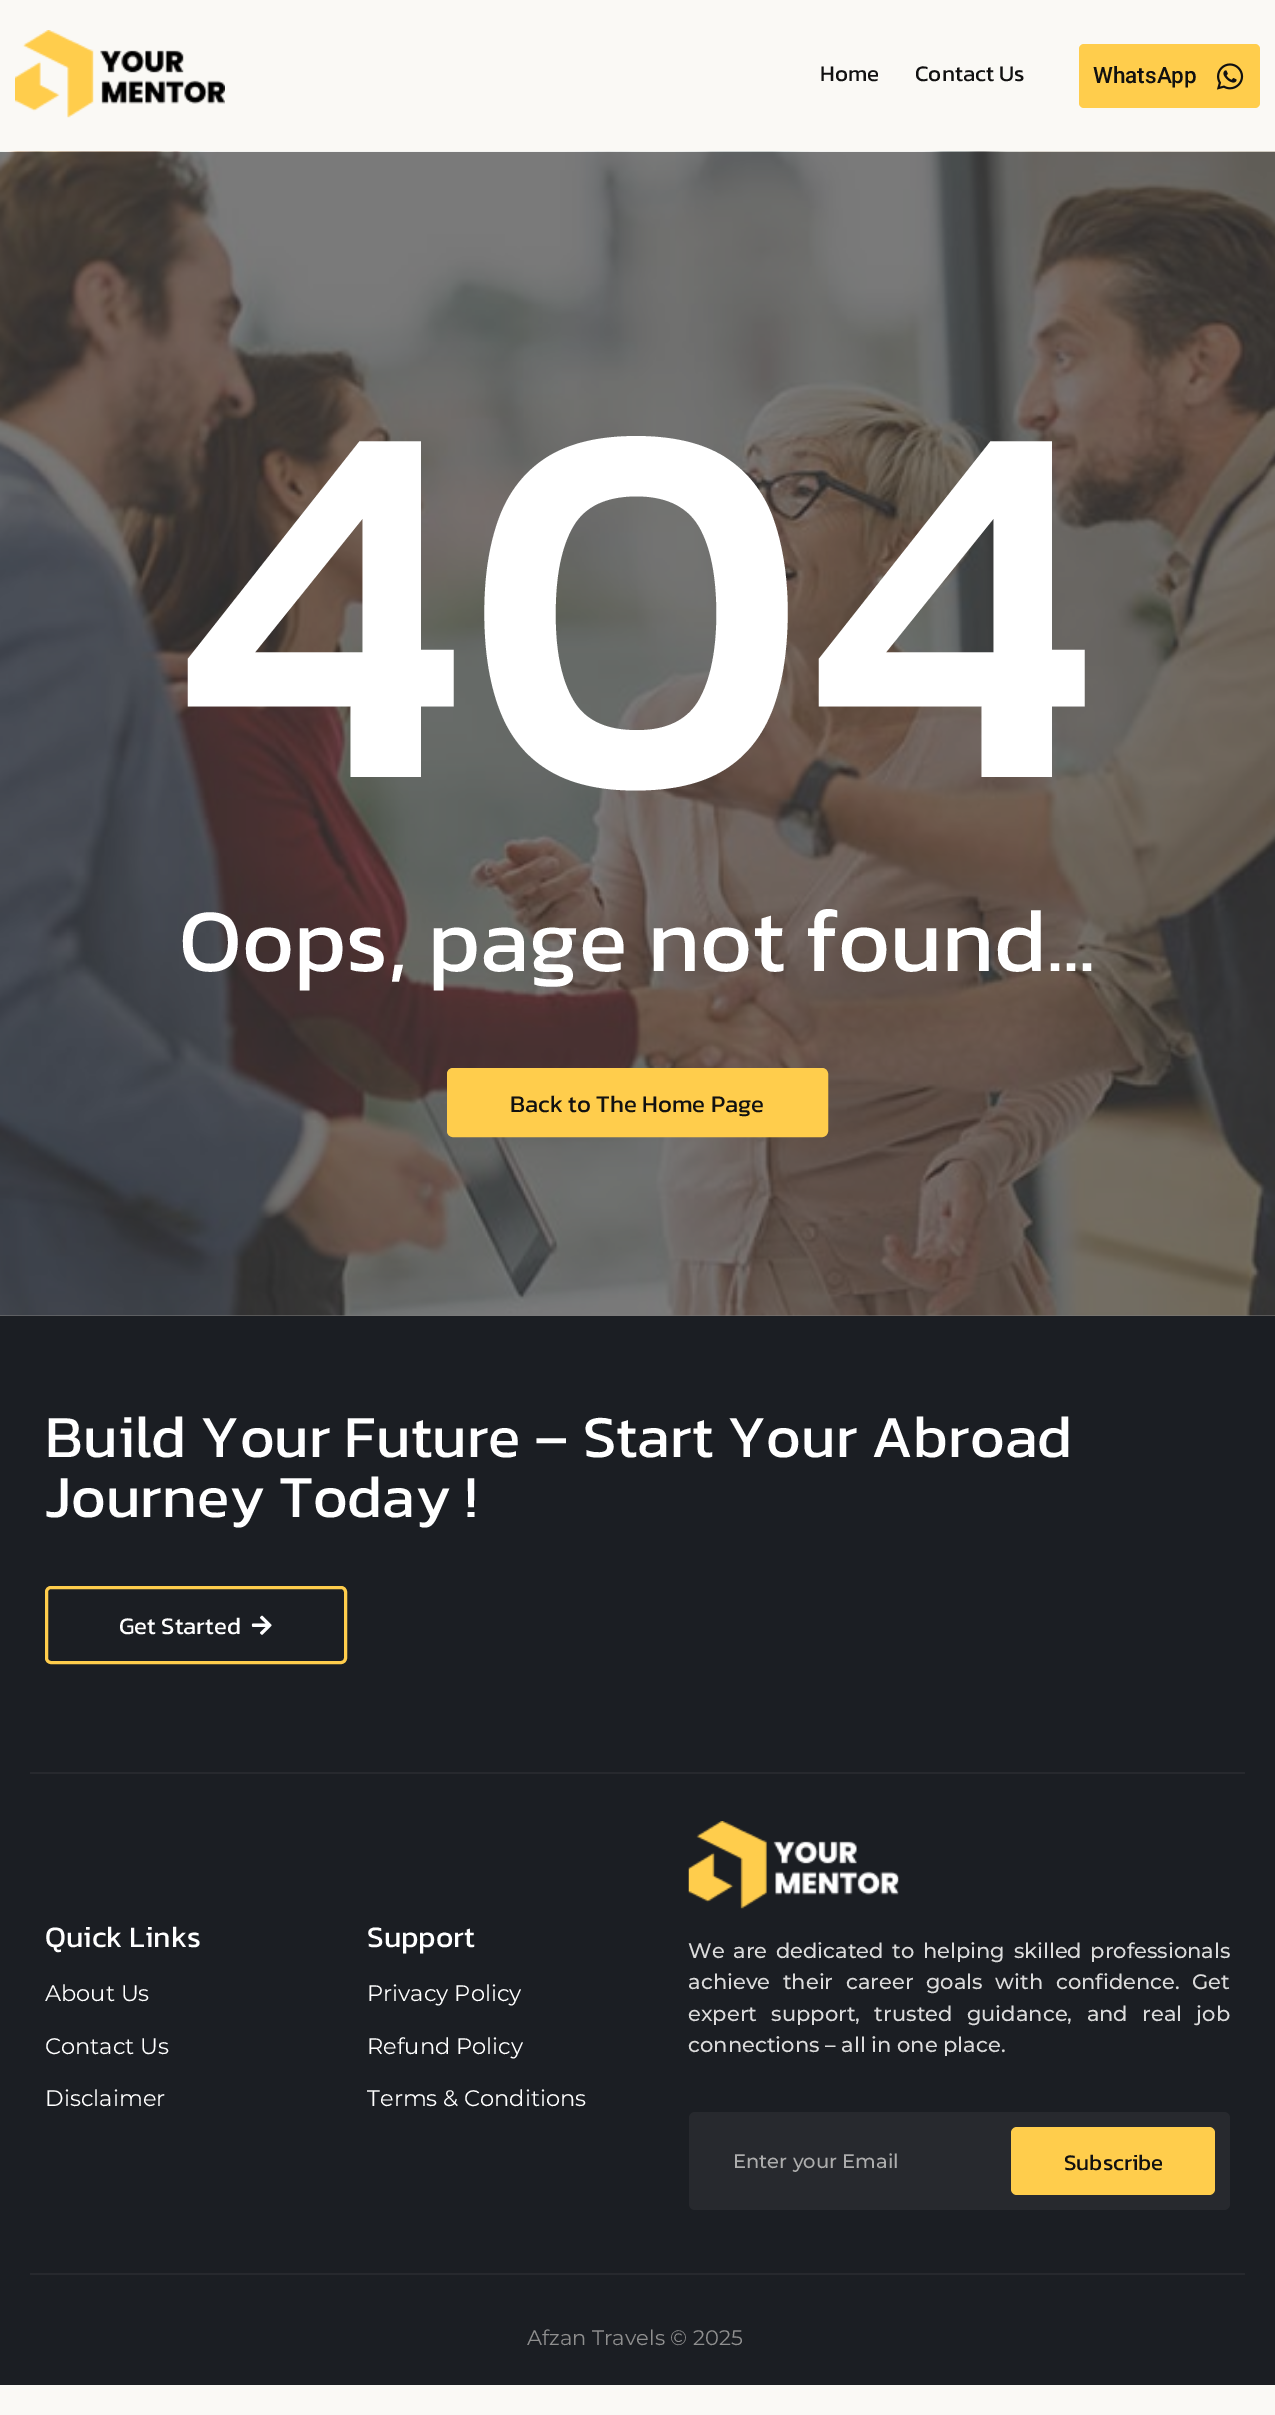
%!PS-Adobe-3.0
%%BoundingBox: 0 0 1275 2415
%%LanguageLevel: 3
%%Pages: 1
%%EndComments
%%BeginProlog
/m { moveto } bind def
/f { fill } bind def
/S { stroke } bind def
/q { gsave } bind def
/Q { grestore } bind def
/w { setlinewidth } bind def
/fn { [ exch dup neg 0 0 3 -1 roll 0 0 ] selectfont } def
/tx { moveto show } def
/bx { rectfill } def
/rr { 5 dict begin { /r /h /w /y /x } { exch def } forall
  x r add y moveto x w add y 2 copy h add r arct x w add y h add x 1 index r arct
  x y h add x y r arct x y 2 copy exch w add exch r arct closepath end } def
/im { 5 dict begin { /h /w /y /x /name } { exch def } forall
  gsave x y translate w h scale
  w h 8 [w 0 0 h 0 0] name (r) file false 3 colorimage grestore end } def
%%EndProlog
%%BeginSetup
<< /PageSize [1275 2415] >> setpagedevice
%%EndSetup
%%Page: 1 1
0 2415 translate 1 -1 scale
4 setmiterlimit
0.98 0.976 0.961 setrgbcolor
0 0 1275 2415 bx
0.494 0.494 0.486 setrgbcolor
0 1315 1275 1 bx
(image0.raw) 15 30 210 88 im
/Kanit-Regular 22.5 fn
0.067 setgray
(Home) 820 81 tx
(Contact Us) 915 81 tx
1 0.804 0.298 setrgbcolor
1079 44 181 64 5 rr f
/Roboto-Medium 22.5 fn
0.067 setgray
(WhatsApp) 1093 83 tx
(image1.raw) 1216 63 28 27 im
(image2.raw) 0 151 1275 1165 im
/Kanit-Medium 525 fn
1 setgray
(404) 179 777 tx
/Kanit-Regular 90 fn
(Oops, page not found...) 179 971 tx
1 0.804 0.298 setrgbcolor
448.5 1069.5 378 66 4.5 rr q f Q
3 w
S
/Kanit-Regular 24 fn
0.067 setgray
(Back to The Home Page) 510 1112 tx
0.106 0.118 0.137 setrgbcolor
0 1316 1275 1069 bx
/Kanit-Regular 60 fn
1 setgray
(Build Your Future – Start Your Abroad) 45 1457 tx
(Journey Today !) 45 1517 tx
1 0.804 0.298 setrgbcolor
46.5 1587.5 299 75 4.5 rr S
/Kanit-Regular 24 fn
1 setgray
(Get Started) 119 1634 tx
(image3.raw) 251 1615 21 20 im
0.153 0.161 0.18 setrgbcolor
30 1772 1215 2 bx
/Kanit-Regular 30 fn
1 setgray
(Quick Links) 45 1947 tx
/Montserrat-Regular 22.5 fn
(About Us) 45 2001 tx
(Contact Us) 45 2054 tx
(Disclaimer) 45 2106 tx
/Kanit-Regular 30 fn
(Support) 367 1947 tx
/Montserrat-Regular 22.5 fn
(Privacy Policy) 367 2001 tx
(Refund Policy) 367 2054 tx
(Terms & Conditions) 367 2106 tx
(image4.raw) 688 1821 211 88 im
/Montserrat-Medium 21 fn
0.859 setgray
688 1958 m 3 0 32 (We are dedicated to helping skilled professionals) widthshow
688 1989 m 7 0 32 (achieve their career goals with confidence. Get) widthshow
688 2021 m 8.75 0 32 (expert support, trusted guidance, and real job) widthshow
(connections – all in one place.) 688 2052 tx
0.153 0.161 0.18 setrgbcolor
689 2112 541 98 6 rr f
/Montserrat-Medium 19.5 fn
0.678 setgray
(Enter your Email) 733 2168 tx
1 0.804 0.298 setrgbcolor
1011 2127 204 68 6 rr f
/Kanit-Regular 22.5 fn
0.067 setgray
(Subscribe) 1064 2170 tx
0.153 0.161 0.18 setrgbcolor
30 2273 1215 2 bx
/Montserrat-Regular 21 fn
0.561 setgray
(Afzan Travels © 2025) 527 2345 tx
showpage
%%EOF
